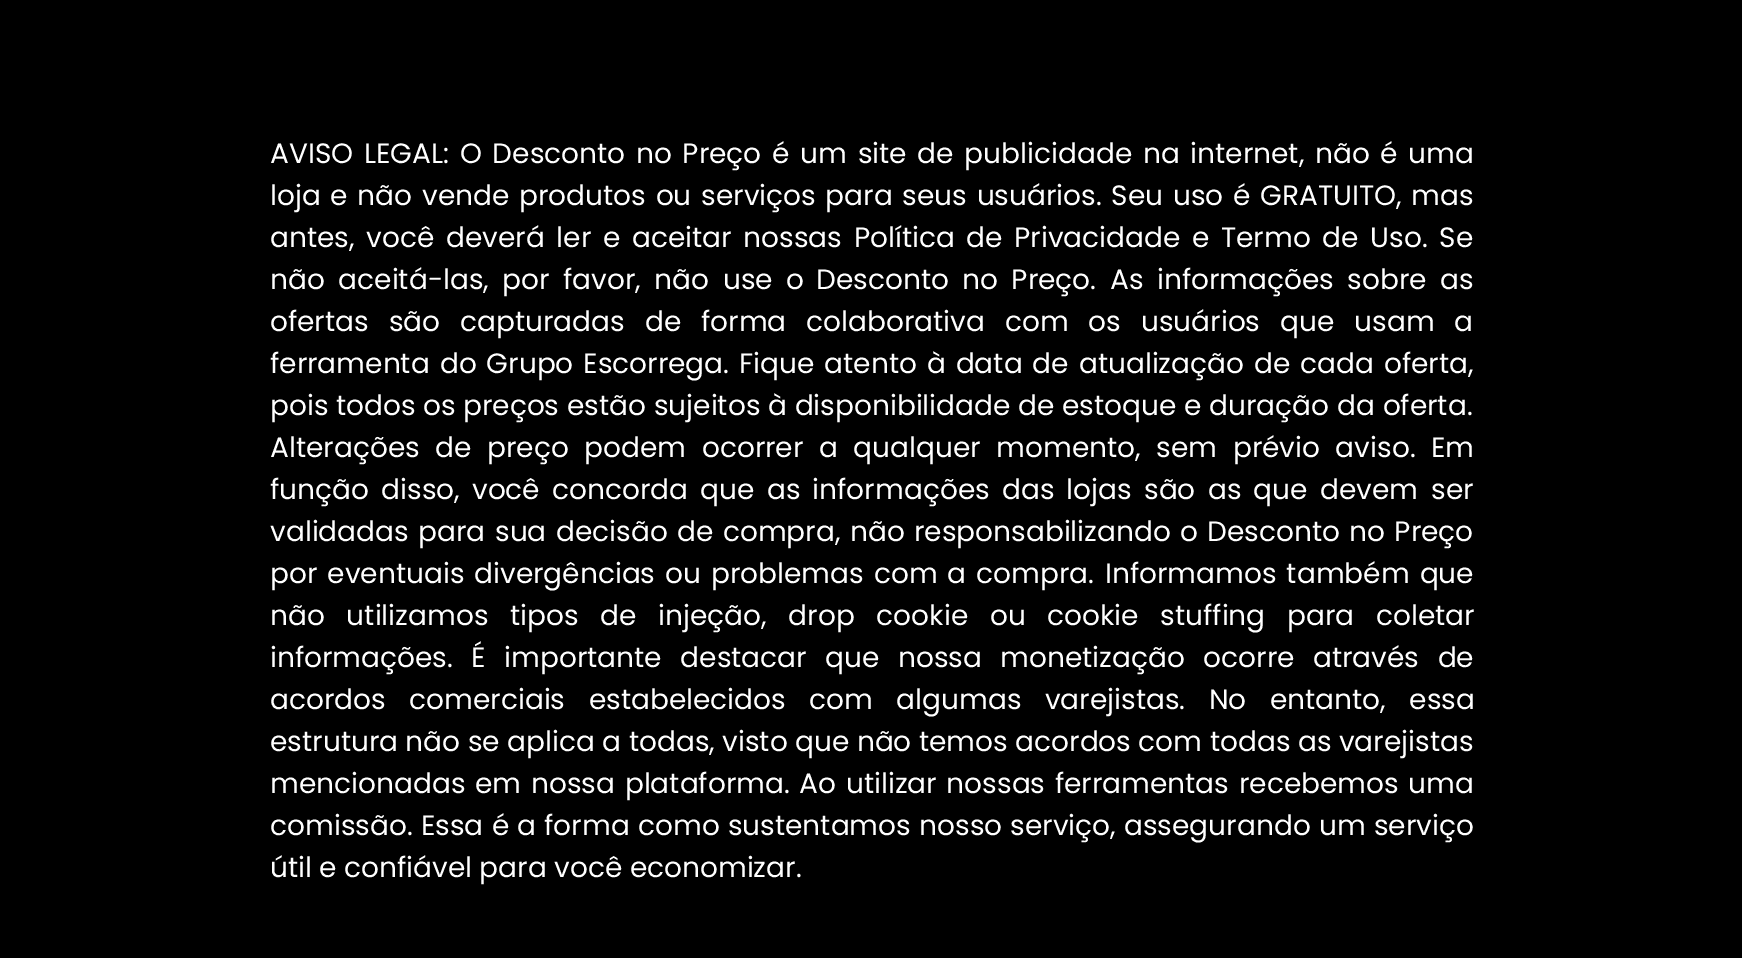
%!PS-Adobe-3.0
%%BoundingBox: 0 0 1742 958
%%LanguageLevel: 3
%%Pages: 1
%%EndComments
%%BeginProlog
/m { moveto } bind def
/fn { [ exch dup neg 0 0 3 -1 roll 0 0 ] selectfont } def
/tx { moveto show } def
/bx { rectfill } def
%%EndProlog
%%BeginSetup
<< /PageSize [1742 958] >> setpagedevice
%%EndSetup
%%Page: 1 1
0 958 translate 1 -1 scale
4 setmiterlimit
0 setgray
0 0 1742 958 bx
/Poppins-Regular 28 fn
1 setgray
270 163 m 3.25 0 32 (AVISO LEGAL: O Desconto no Preço é um site de publicidade na internet, não) widthshow
1380 163 m 3 0 32 (é uma) widthshow
270 205 m 2.25 0 32 (loja e não vende produtos ou serviços para seus usuários. Seu uso é) widthshow
1260 205 m 2.25 0 32 (GRATUITO, mas) widthshow
270 247 m 4.25 0 32 (antes, você deverá ler e aceitar nossas Política de) widthshow
1014 247 m 4.25 0 32 (Privacidade e Termo de Uso. Se) widthshow
270 289 m 6 0 32 (não aceitá-las, por favor, não use o) widthshow
816 289 m 6 0 32 (Desconto no Preço. As informações sobre as) widthshow
270 331 m 12.5 0 32 (ofertas são capturadas de forma) widthshow
806 331 m 12.5 0 32 (colaborativa com os usuários que usam a) widthshow
270 373 m 2.5 0 32 (ferramenta do Grupo Escorrega.) widthshow
739 373 m 2.5 0 32 (Fique atento à data de atualização de cada oferta,) widthshow
(pois todos os preços) 270 415 tx
567 415 m 0.25 0 32 (estão sujeitos à disponibilidade de estoque e duração da oferta.) widthshow
270 457 m 8.1 0 32 (Alterações de preço podem ocorrer a qualquer momento, sem prévio aviso. Em) widthshow
270 499 m 4.75 0 32 (função disso, você concorda que as informações das lojas são as que devem) widthshow
(ser) 1431 499 tx
270 541 m 2 0 32 (validadas para sua decisão de compra, não responsabilizando o) widthshow
1207 541 m 2 0 32 (Desconto no Preço) widthshow
270 583 m 2.5 0 32 (por eventuais divergências ou problemas com a compra.) widthshow
1105 583 m 2.5 0 32 (Informamos também que) widthshow
270 625 m 14.25 0 32 (não utilizamos tipos de injeção, drop cookie ou cookie stuffing para coletar) widthshow
270 667 m 11 0 32 (informações. É importante destacar que nossa monetização ocorre através de) widthshow
270 709 m 16 0 32 (acordos comerciais estabelecidos com algumas varejistas. No entanto, essa) widthshow
(estrutura não se aplica a todas, visto que não temos acordos com todas as varejistas) 270 751 tx
270 793 m 2.25 0 32 (mencionadas em nossa plataforma. Ao utilizar nossas ferramentas recebemos uma) widthshow
270 835 m 0.75 0 32 (comissão. Essa é a forma como sustentamos nosso serviço, assegurando um serviço) widthshow
(útil e confiável para você economizar.) 270 877 tx
showpage
%%EOF
